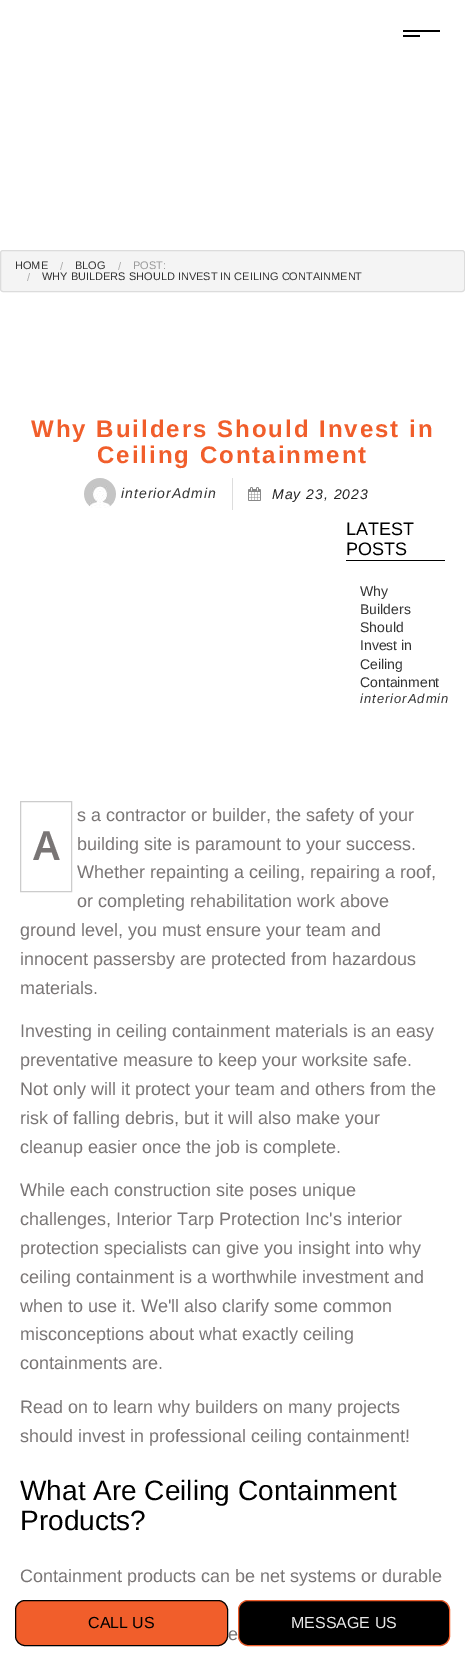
%!PS-Adobe-3.0
%%BoundingBox: 0 0 465 1656
%%LanguageLevel: 3
%%Pages: 1
%%EndComments
%%BeginProlog
/m { moveto } bind def
/f { fill } bind def
/S { stroke } bind def
/q { gsave } bind def
/Q { grestore } bind def
/fn { [ exch dup neg 0 0 3 -1 roll 0 0 ] selectfont } def
/tx { moveto show } def
/bx { rectfill } def
/rr { 5 dict begin { /r /h /w /y /x } { exch def } forall
  x r add y moveto x w add y 2 copy h add r arct x w add y h add x 1 index r arct
  x y h add x y r arct x y 2 copy exch w add exch r arct closepath end } def
/im { 5 dict begin { /h /w /y /x /name } { exch def } forall
  gsave x y translate w h scale
  w h 8 [w 0 0 h 0 0] name (r) file false 3 colorimage grestore end } def
%%EndProlog
%%BeginSetup
<< /PageSize [465 1656] >> setpagedevice
%%EndSetup
%%Page: 1 1
0 1656 translate 1 -1 scale
4 setmiterlimit
1 setgray
0 0 465 1656 bx
0 setgray
403 30 37 2 bx
403 35 17 2 bx
0.957 setgray
0.5 250.5 464 41 2.5 rr q f Q
0.863 setgray
S
/LiberationSans-Regular 11 fn
0.2 setgray
(HOME) 15 269 tx
0.667 setgray
(/) 60 270 tx
0.2 setgray
(BLOG) 75 269 tx
0.667 setgray
(/) 118 270 tx
0.6 setgray
(POST:) 133 269 tx
0.667 setgray
(/) 27 281 tx
0.2 setgray
(WHY BUILDERS SHOULD INVEST IN CEILING CONTAINMENT) 42 280 tx
/LiberationSans-Bold 24 fn
0.945 0.369 0.169 setrgbcolor
31 437 m 2 0 (Why Builders Should Invest in) ashow
97 463 m 2 0 (Ceiling Containment) ashow
0.867 setgray
232 478 1 32 bx
(image0.raw) 84 478 32 30 im
/LiberationSans-Italic 14 fn
0.2 setgray
121 498 m 1 0 (interiorAdmin) ashow
(image1.raw) 248 487 13 14 im
0.133 setgray
272 499 m 1 0 (May 23, 2023) ashow
0 setgray
346 560 99 1 bx
/LiberationSans-Regular 18 fn
(LATEST) 346 535 tx
(POSTS) 346 555 tx
/LiberationSans-Regular 14 fn
0.2 setgray
(Why) 360 596 tx
(Builders) 360 614 tx
(Should) 360 632 tx
(Invest in) 360 650 tx
(Ceiling) 360 669 tx
(Containment) 360 687 tx
/LiberationSans-Italic 13 fn
360 703 m 1 0 (interiorAdmin) ashow
/LiberationSans-Regular 18 fn
0.475 0.459 0.459 setrgbcolor
(s a contractor or builder, the safety of your) 77 821 tx
0.8 setgray
20.5 801.5 51 90 rectstroke
/NotoSans-SemiBold 40 fn
0.475 0.459 0.459 setrgbcolor
(A) 33 860 tx
/LiberationSans-Regular 18 fn
(building site is paramount to your success.) 77 850 tx
(Whether repainting a ceiling, repairing a roof,) 77 878 tx
(or completing rehabilitation work above) 77 907 tx
(ground level, you must ensure your team and) 20 936 tx
(innocent passersby are protected from hazardous) 20 965 tx
(materials.) 20 994 tx
(Investing in ceiling containment materials is an easy) 20 1037 tx
(preventative measure to keep your worksite safe.) 20 1066 tx
(Not only will it protect your team and others from the) 20 1095 tx
(risk of falling debris, but it will also make your) 20 1124 tx
(cleanup easier once the job is complete.) 20 1153 tx
(While each construction site poses unique) 20 1196 tx
(challenges, Interior Tarp Protection Inc's interior) 20 1225 tx
(protection specialists can give you insight into why) 20 1254 tx
(ceiling containment is a worthwhile investment and) 20 1283 tx
(when to use it. We'll also clarify some common) 20 1312 tx
(misconceptions about what exactly ceiling) 20 1340 tx
(containments are.) 20 1369 tx
(Read on to learn why builders on many projects) 20 1413 tx
(should invest in professional ceiling containment!) 20 1442 tx
/LiberationSans-Regular 28 fn
0 setgray
(What Are Ceiling Containment) 20 1500 tx
(Products?) 20 1530 tx
/LiberationSans-Regular 18 fn
0.475 0.459 0.459 setrgbcolor
(Containment products can be net systems or durable) 20 1582 tx
(e) 228 1640 tx
0.945 0.369 0.169 setrgbcolor
15.5 1600.5 212 45 9.5 rr q f Q
0 setgray
S
/LiberationSans-Regular 16 fn
(CALL US) 88 1628 tx
238.5 1600.5 211 45 9.5 rr q f Q
0.945 0.369 0.169 setrgbcolor
S
0.914 setgray
(MESSAGE US) 291 1628 tx
showpage
%%EOF
